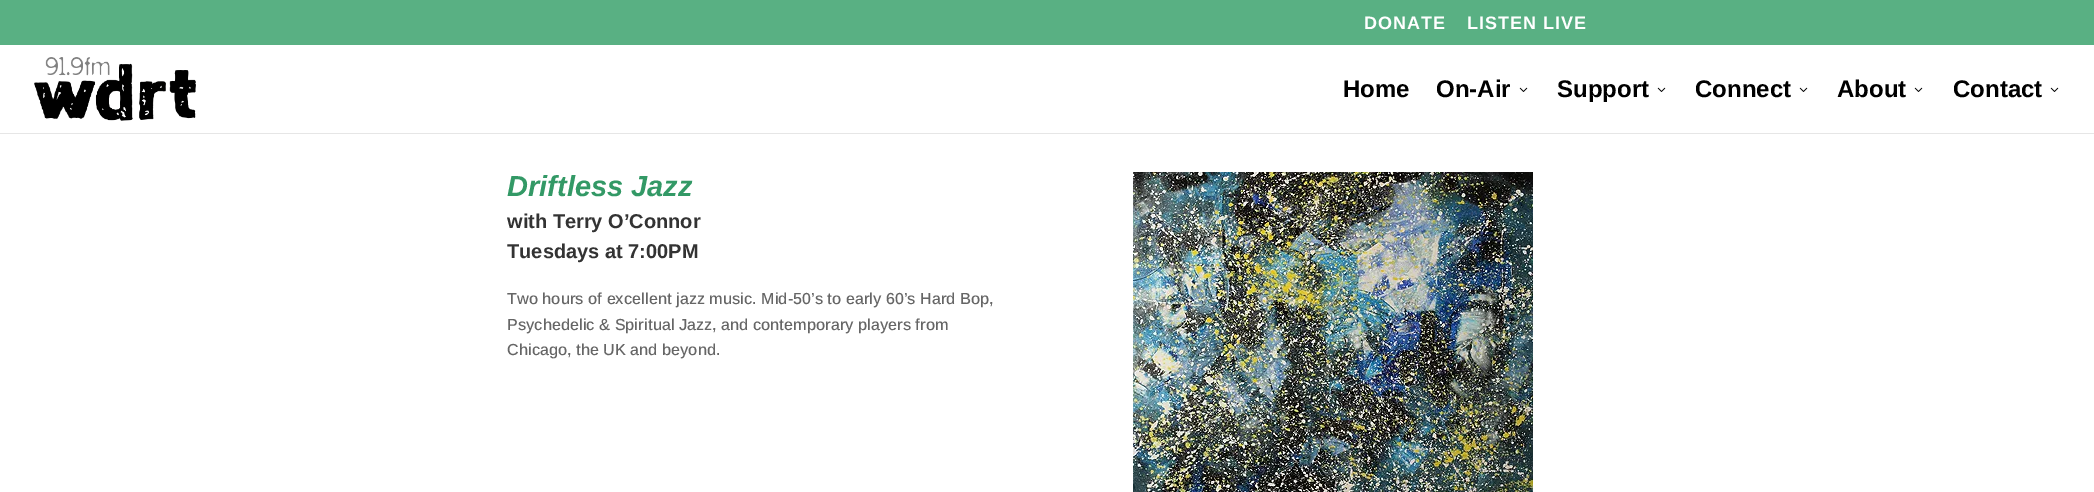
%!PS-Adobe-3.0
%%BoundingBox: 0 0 2094 492
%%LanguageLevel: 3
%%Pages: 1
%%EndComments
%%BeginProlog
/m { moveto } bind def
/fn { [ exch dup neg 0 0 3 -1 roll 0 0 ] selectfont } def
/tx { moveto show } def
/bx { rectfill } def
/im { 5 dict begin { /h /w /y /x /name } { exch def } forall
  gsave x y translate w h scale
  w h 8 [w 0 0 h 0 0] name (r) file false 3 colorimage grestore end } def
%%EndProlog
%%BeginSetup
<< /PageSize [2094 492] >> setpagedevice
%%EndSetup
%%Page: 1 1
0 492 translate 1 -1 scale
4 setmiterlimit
1 setgray
0 0 2094 492 bx
0.349 0.69 0.514 setrgbcolor
0 0 2094 45 bx
/Arimo-Bold 18 fn
1 setgray
1364 29 m 1 0 (DONATE) ashow
1467 29 m 1 0 (LISTEN LIVE) ashow
0.902 setgray
0 133 2094 1 bx
(image0.raw) 34 57 162 64 im
/Arimo-Bold 24 fn
0 setgray
(Home) 1343 97 tx
(On-Air) 1436 97 tx
(image1.raw) 1519 87 9 5 im
(Support) 1557 97 tx
(image1.raw) 1657 87 9 5 im
(Connect) 1695 97 tx
(image1.raw) 1799 87 9 5 im
(About) 1837 97 tx
(image1.raw) 1914 87 9 5 im
(Contact) 1953 97 tx
(image1.raw) 2050 87 9 5 im
/Arimo-BoldItalic 29 fn
0.2 0.6 0.4 setrgbcolor
(Driftless Jazz) 507 196 tx
/Arimo-Bold 20 fn
0.2 setgray
(with Terry O’Connor) 507 228 tx
(Tuesdays at 7:00PM) 507 258 tx
/Arimo-Medium 16 fn
0.4 setgray
(Two hours of excellent jazz music. Mid-50’s to early 60’s Hard Bop,) 507 304 tx
(Psychedelic & Spiritual Jazz, and contemporary players from) 507 330 tx
(Chicago, the UK and beyond.) 507 355 tx
(image2.raw) 1133 172 400 320 im
showpage
%%EOF
